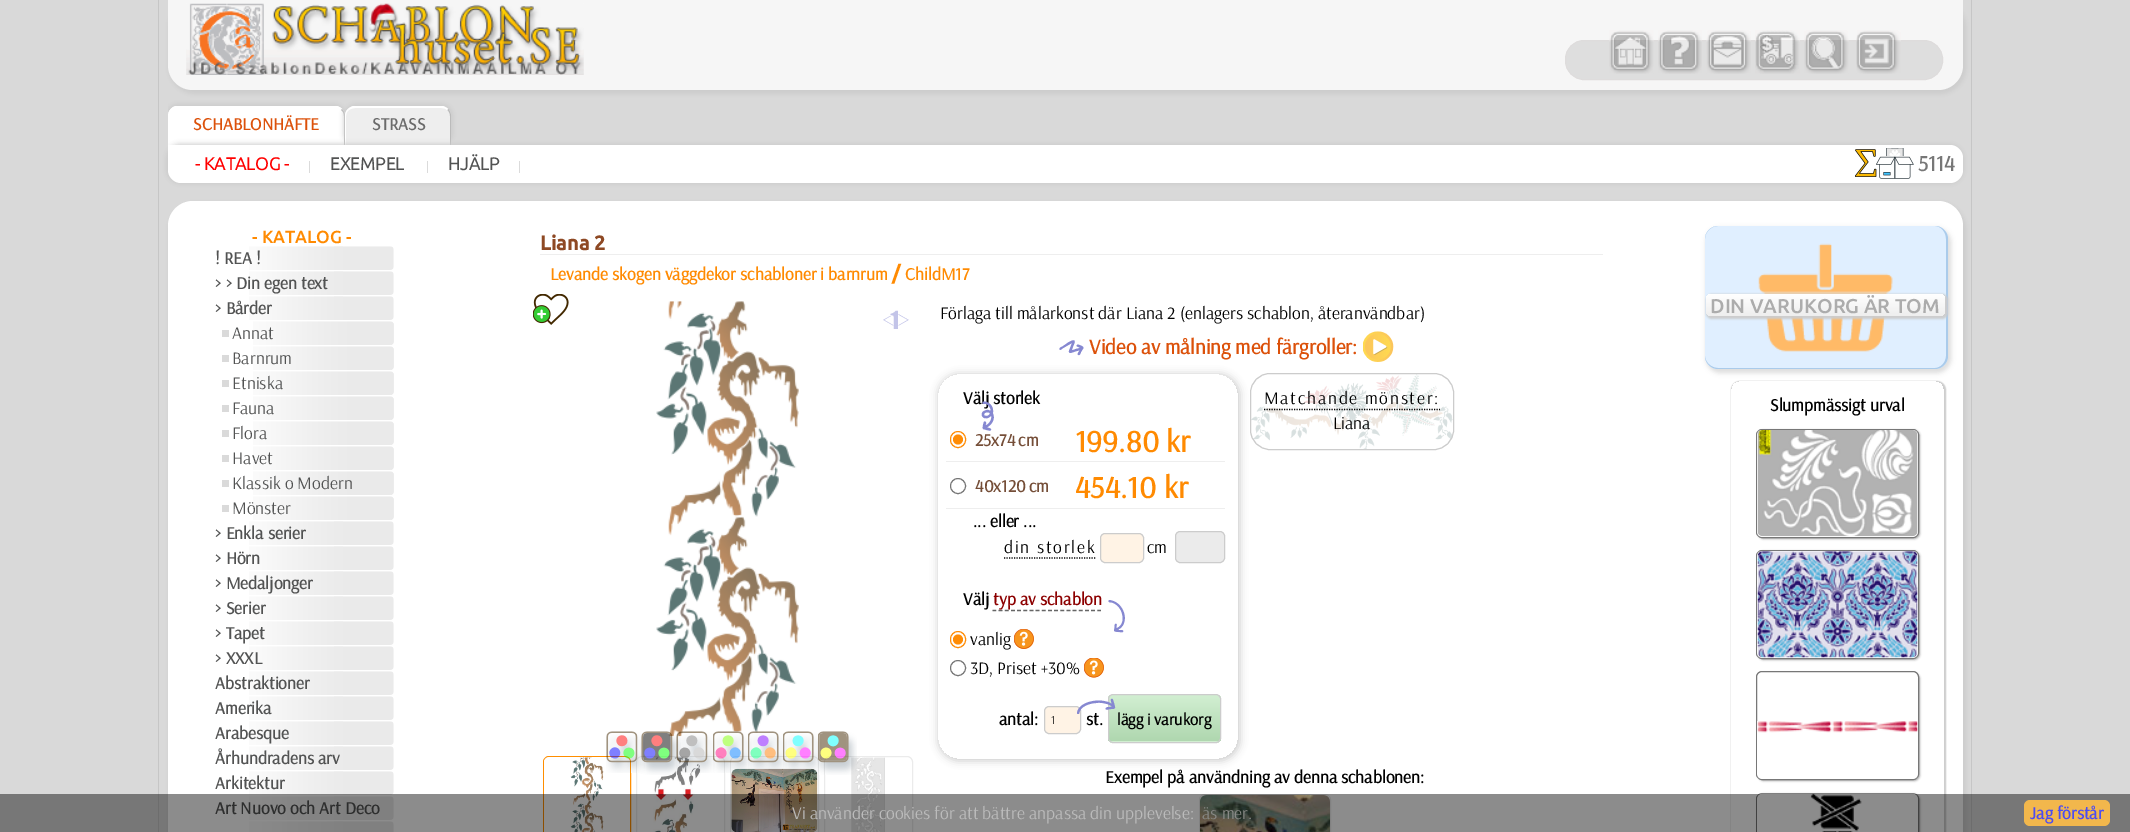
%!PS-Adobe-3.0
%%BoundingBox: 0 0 2130 832
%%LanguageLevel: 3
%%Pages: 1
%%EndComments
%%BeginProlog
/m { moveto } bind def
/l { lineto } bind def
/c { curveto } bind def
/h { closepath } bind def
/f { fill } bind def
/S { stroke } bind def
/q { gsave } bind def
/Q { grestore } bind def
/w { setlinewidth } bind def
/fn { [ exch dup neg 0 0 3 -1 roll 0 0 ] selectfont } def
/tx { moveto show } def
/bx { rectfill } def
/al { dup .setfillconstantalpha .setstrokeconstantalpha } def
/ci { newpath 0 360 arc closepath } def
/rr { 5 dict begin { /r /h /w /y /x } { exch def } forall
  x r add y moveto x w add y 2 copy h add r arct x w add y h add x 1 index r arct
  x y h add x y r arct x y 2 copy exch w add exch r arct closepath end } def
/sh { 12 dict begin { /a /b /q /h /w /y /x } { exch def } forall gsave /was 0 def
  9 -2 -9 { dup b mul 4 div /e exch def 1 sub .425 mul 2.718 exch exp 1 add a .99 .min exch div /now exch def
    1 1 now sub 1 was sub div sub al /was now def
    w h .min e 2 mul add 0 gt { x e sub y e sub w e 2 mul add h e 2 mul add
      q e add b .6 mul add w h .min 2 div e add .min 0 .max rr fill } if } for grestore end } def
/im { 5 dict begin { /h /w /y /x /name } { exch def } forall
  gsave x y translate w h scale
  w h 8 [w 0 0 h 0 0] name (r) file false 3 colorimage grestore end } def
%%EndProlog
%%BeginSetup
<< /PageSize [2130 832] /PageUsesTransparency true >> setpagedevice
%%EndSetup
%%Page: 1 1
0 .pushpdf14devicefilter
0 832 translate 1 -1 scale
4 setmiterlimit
0.851 setgray
0 0 2130 832 bx
0.776 setgray
1971 0 1 832 bx
158 0 1 832 bx
0.8 setgray
169 1 1797 93 26 2.5 1 sh
0.965 setgray
168 0 m 1963 0 l 1963 65 l 1963 79 1952 90 1938 90 c 193 90 l 179 90 168 79 168 65 c h f
(image0.raw) 186 3 398 72 im
0.871 setgray
1565.5 40.5 377 39 18.5 rr q f Q
0.871 0.863 0.863 setrgbcolor
S
(image1.raw) 1609 30 45 44 im
(image2.raw) 1658 30 44 44 im
(image3.raw) 1706 30 45 44 im
(image4.raw) 1755 30 45 44 im
(image5.raw) 1804 30 45 44 im
(image6.raw) 1856 30 45 44 im
q
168 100 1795 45 rectclip
0.8 setgray
166 104 180 41 11 2.5 1 sh
Q
1 setgray
178 106 m 335 106 l 340.5 106 345 110.5 345 116 c 345 145 l 168 145 l 168 116 l 168 110.5 172.5 106 178 106 c h f
178 108 m 172 108 168 111 168 116 c 168 112 171 107 176 106 c 337 106 l 339 107 341 108 342 109 c 341 110 l 340 109 337 108 335 108 c h f
0.733 setgray
344 145 m 345 145 l 345 116 l 345 113.5 344 111 342 109 c 341 110 l 343 111.5 344 113.5 344 116 c h f
/Arsenal-Bold 17.5 fn
0.863 0.318 0.039 setrgbcolor
(SCHABLONHÄFTE) 193 130 tx
0.8 setgray
344 104 109 41 11 2.5 1 sh
0.933 setgray
355 106 m 441 106 l 446.5 106 451 110.5 451 116 c 451 145 l 345 145 l 345 116 l 345 110.5 349.5 106 355 106 c h f
1 setgray
355 108 m 353 108 350 109 349 110 c 348 109 l 349 108 351 107 353 106 c 443 106 l 445 107 447 108 448 109 c 447 110 l 446 109 444 108 441 108 c h f
0.733 setgray
450 145 m 451 145 l 451 116 l 451 113.5 450 111 448.5 109 c 447.5 110 l 449 111.5 450 113.5 450 116 c h f
1 setgray
345 145 m 346 145 l 346 116 l 346 113.5 347 111.5 349 110 c 348 109 l 346 111 345 113.5 345 116 c h f
0.42 setgray
(STRASS) 372 130 tx
0.8 setgray
166 144 1798 40 14 2.5 1 sh
1 setgray
168 145 m 1950 145 l 1957 145 1963 151 1963 158 c 1963 170 l 1963 177 1957 183 1950 183 c 181 183 l 174 183 168 177 168 170 c h f
/Ubuntu-Bold 17.5 fn
1 0 0 setrgbcolor
(- KATALOG -) 195 170 tx
/Arsenal-Regular 12 fn
0.733 setgray
(|) 308 170 tx
/Ubuntu-Bold 17.5 fn
0.322 0.325 0.325 setrgbcolor
(EXEMPEL) 330 170 tx
/Arsenal-Regular 12 fn
0.733 setgray
(|) 426 170 tx
/Ubuntu-Bold 17.5 fn
0.322 0.325 0.325 setrgbcolor
(HJÄLP) 448 170 tx
/Arsenal-Regular 12 fn
0.733 setgray
(|) 518 170 tx
(image7.raw) 1855 148 59 31 im
/Arsenal-Bold 22 fn
0.467 setgray
(5114) 1918 171 tx
0.8 setgray
169 203 1797 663 26 2.5 1 sh
1 setgray
168 201 1795 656 25 rr f
/Ubuntu-Medium 17.5 fn
1 0.541 0.004 setrgbcolor
(- KATALOG -) 252 243 tx
(image8.raw) 249 246 145 24 im
0.941 setgray
334 246 9 1 bx
/Arsenal-Bold 17.5 fn
0.322 0.325 0.325 setrgbcolor
(! REA !) 215 264 tx
(image8.raw) 249 271 145 24 im
0.941 setgray
334 271 9 1 bx
0.322 0.325 0.325 setrgbcolor
(> > Din egen text) 215 289 tx
(image8.raw) 249 296 145 24 im
0.941 setgray
334 296 9 1 bx
0.322 0.325 0.325 setrgbcolor
(> Bårder) 215 314 tx
(image9.raw) 253 321 141 24 im
0.855 setgray
222 330 7 7 bx
(image10.raw) 391 323 3 22 im
/Arsenal-Regular 17.5 fn
0.322 0.325 0.325 setrgbcolor
(Annat) 232 339 tx
(image9.raw) 253 346 141 24 im
0.855 setgray
222 355 7 7 bx
(image10.raw) 391 348 3 22 im
0.322 0.325 0.325 setrgbcolor
(Barnrum) 232 364 tx
(image9.raw) 253 371 141 24 im
0.855 setgray
222 380 7 7 bx
(image10.raw) 391 373 3 22 im
0.322 0.325 0.325 setrgbcolor
(Etniska) 232 389 tx
(image9.raw) 253 396 141 24 im
0.855 setgray
222 405 7 7 bx
(image10.raw) 391 398 3 22 im
0.322 0.325 0.325 setrgbcolor
(Fauna) 232 414 tx
(image9.raw) 253 421 141 24 im
0.855 setgray
222 430 7 7 bx
(image10.raw) 391 423 3 22 im
0.322 0.325 0.325 setrgbcolor
(Flora) 232 439 tx
(image9.raw) 253 446 141 24 im
0.855 setgray
222 455 7 7 bx
(image10.raw) 391 448 3 22 im
0.322 0.325 0.325 setrgbcolor
(Havet) 232 464 tx
(image9.raw) 253 471 141 24 im
0.855 setgray
222 480 7 7 bx
(image10.raw) 391 473 3 22 im
0.322 0.325 0.325 setrgbcolor
(Klassik o Modern) 232 489 tx
(image9.raw) 253 496 141 24 im
0.855 setgray
222 505 7 7 bx
(image10.raw) 391 498 3 22 im
0.322 0.325 0.325 setrgbcolor
(Mönster) 232 514 tx
(image8.raw) 249 521 145 24 im
0.941 setgray
334 521 9 1 bx
/Arsenal-Bold 17.5 fn
0.322 0.325 0.325 setrgbcolor
(> Enkla serier) 215 539 tx
(image8.raw) 249 546 145 24 im
0.941 setgray
334 546 9 1 bx
0.322 0.325 0.325 setrgbcolor
(> Hörn) 215 564 tx
(image8.raw) 249 571 145 24 im
0.941 setgray
334 571 9 1 bx
0.322 0.325 0.325 setrgbcolor
(> Medaljonger) 215 589 tx
(image8.raw) 249 596 145 24 im
0.941 setgray
334 596 9 1 bx
0.322 0.325 0.325 setrgbcolor
(> Serier) 215 614 tx
(image8.raw) 249 621 145 24 im
0.941 setgray
334 621 9 1 bx
0.322 0.325 0.325 setrgbcolor
(> Tapet) 215 639 tx
(image8.raw) 249 646 145 24 im
0.941 setgray
334 646 9 1 bx
0.322 0.325 0.325 setrgbcolor
(> XXXL) 215 664 tx
(image8.raw) 249 671 145 24 im
0.941 setgray
334 671 9 1 bx
0.322 0.325 0.325 setrgbcolor
(Abstraktioner) 215 689 tx
(image8.raw) 249 696 145 24 im
0.941 setgray
334 696 9 1 bx
0.322 0.325 0.325 setrgbcolor
(Amerika) 215 714 tx
(image8.raw) 249 721 145 24 im
0.941 setgray
334 721 9 1 bx
0.322 0.325 0.325 setrgbcolor
(Arabesque) 215 739 tx
(image8.raw) 249 746 145 24 im
0.941 setgray
334 746 9 1 bx
0.322 0.325 0.325 setrgbcolor
(Århundradens arv) 215 764 tx
(image8.raw) 249 771 145 24 im
0.941 setgray
334 771 9 1 bx
0.322 0.325 0.325 setrgbcolor
(Arkitektur) 215 789 tx
(image8.raw) 249 796 145 24 im
0.941 setgray
334 796 9 1 bx
0.322 0.325 0.325 setrgbcolor
(Art Nuovo och Art Deco) 215 814 tx
(image11.raw) 249 821 145 11 im
0.941 setgray
334 821 9 1 bx
0.933 setgray
540 254 1063 1 bx
/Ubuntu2-Bold 20 fn
0.557 0.286 0.141 setrgbcolor
(Liana 2) 540 250 tx
/Arsenal-Bold 17.5 fn
1 0.541 0.004 setrgbcolor
(Levande skogen väggdekor schabloner i barnrum) 550 280 tx
/Ubuntu2-Bold 20 fn
(/) 892 280 tx
/Arsenal-Bold 17.5 fn
(ChildM17) 905 280 tx
(image12.raw) 533 294 36 31 im
(image13.raw) 656 301 143 436 im
/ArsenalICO-Regular 28 fn
0.765 0.769 0.91 setrgbcolor
883 329 m 1.75 0 (a) ashow
1 0.557 0 setrgbcolor
543.5 756.5 87 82 5.5 rr S
(image21.raw) 544 757 86 75 im
0.922 setgray
636.5 756.5 88 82 5.5 rr S
(image14.raw) 606 731 39 42 im
(image22.raw) 653 757 48 75 im
(image15.raw) 640 731 41 44 im
(image16.raw) 676 731 39 42 im
730.5 756.5 88 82 5.5 rr S
(image23.raw) 731 768 87 64 im
(image17.raw) 713 731 38 42 im
(image18.raw) 748 731 38 42 im
(image19.raw) 783 731 38 42 im
824.5 756.5 88 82 5.5 rr S
(image24.raw) 851 757 34 75 im
(image20.raw) 817 731 40 44 im
/Arsenal-Regular 17.5 fn
0 setgray
(Förlaga till målarkonst där Liana 2 \(enlagers schablon, återanvändbar\)) 940 319 tx
/ArsenalICO-Regular 28 fn
0.525 0.533 0.82 setrgbcolor
q 1069 355 translate -60 rotate 0 0 m (O) show Q
/Arsenal-Bold 21 fn
0.863 0.318 0.039 setrgbcolor
(Video av målning med färgroller:) 1089 354 tx
(image25.raw) 1363 331 31 31 im
(image28.raw) 1250 374 204 76 im
0.8 setgray
1250.5 373.5 203 76 19.5 rr S
q
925 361 m 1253 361 l 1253 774 l 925 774 l h 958 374 m 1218 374 l 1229 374 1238 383 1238 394 c 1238 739 l 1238 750 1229 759 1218 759 c 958 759 l 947 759 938 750 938 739 c 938 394 l 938 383 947 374 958 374 c h eoclip newpath
938 374 302 387 21 4 1 sh
Q
/Arsenal-Bold 17.5 fn
0 setgray
(Välj storlek) 963 404 tx
/ArsenalICO-Regular 28 fn
0.525 0.533 0.82 setrgbcolor
q 971 399 translate 100 rotate 0 0 m (Z) show Q
0.933 setgray
946 461 279 1 bx
1 0.549 0.02 setrgbcolor
950.5 431.5 15 16 7.5 rr S
958 439.5 5 ci f
/Arsenal-Bold 17.5 fn
0.459 0.306 0.22 setrgbcolor
(25x74 cm) 975 446 tx
/Arsenal-Bold 31 fn
1 0.541 0.004 setrgbcolor
(199.80 kr) 1075 452 tx
0.933 setgray
946 508 279 1 bx
0.463 setgray
958 486 7.5 ci S
/Arsenal-Bold 17.5 fn
0.459 0.306 0.22 setrgbcolor
(40x120 cm) 975 492 tx
/Arsenal-Bold 31 fn
1 0.541 0.004 setrgbcolor
(454.10 kr) 1075 498 tx
/Arsenal-Bold 17.5 fn
0 setgray
(... eller ...) 973 527 tx
1.2 w
[1.25 1.25] 0 setdash
1004 558 m 1096 558 l S
/Arsenal-Regular 17.5 fn
1004 553 m 1.75 0 (din storlek) ashow
1 0.953 0.898 setrgbcolor
1100.5 533.5 43 29 4.5 rr q f Q
0.8 setgray
1 w
[] 0 setdash
S
0 setgray
(cm) 1147 553 tx
0.922 setgray
1175.5 531.5 49 31 4.5 rr q f Q
0.8 setgray
S
/Arsenal-Bold 17.5 fn
0 setgray
(Välj) 963 605 tx
0.4 setgray
1.2 w
[3.75 2.42] 0 setdash
992.5 610.5 m 1101 610.5 l S
0.549 0 0 setrgbcolor
(typ av schablon) 993 605 tx
/ArsenalICO-Regular 28 fn
0.525 0.533 0.82 setrgbcolor
q 1097 600 translate 90 rotate 0 0 m (Y) show Q
1 0.549 0.02 setrgbcolor
1 w
[] 0 setdash
950.5 631.5 15 16 7.5 rr S
958 639.5 5 ci f
/Arsenal-Regular 17.5 fn
0 setgray
(vanlig) 970 645 tx
(image26.raw) 1014 629 20 20 im
0.463 setgray
958 668 7.5 ci S
0 setgray
(3D, Priset +30%) 970 674 tx
(image27.raw) 1084 658 20 20 im
/Arsenal-Bold 17.5 fn
(antal:) 999 725 tx
q
1108 694 113 49 5 rr clip newpath
q 1108 695 m 1221 695 l 1221 741 l 1108 741 l h clip newpath
<< /ShadingType 2 /ColorSpace /DeviceRGB /Coords [1164 695 1164 741] /Extend [true true] /Function << /FunctionType 2 /Domain [0 1] /C0 [0.824 0.937 0.824] /C1 [0.686 0.843 0.686] /N 1 >> >> shfill Q
q 1108 741 m 1221 741 l 1221 743 l 1108 743 l h clip newpath
<< /ShadingType 2 /ColorSpace /DeviceRGB /Coords [1164 741 1164 788] /Extend [true true] /Function << /FunctionType 2 /Domain [0 1] /C0 [0.824 0.937 0.824] /C1 [0.686 0.843 0.686] /N 1 >> >> shfill Q
Q
0.8 setgray
1108.5 694.5 112 48 4.5 rr S
1 0.953 0.898 setrgbcolor
1044.5 706.5 36 27 4.5 rr q f Q
0.8 setgray
S
/ArsenalICO-Regular 28 fn
0.525 0.533 0.82 setrgbcolor
(X) 1077 725 tx
/Arsenal-Bold 16.25 fn
0 setgray
(lägg i varukorg) 1117 725 tx
/Arsenal-Regular 12 fn
(1) 1051 724 tx
/Arsenal-Bold 17.5 fn
(st.) 1086 725 tx
/Arsenal-Regular 17.5 fn
1264 404 m 1.75 0 (Matchande mönster:) ashow
1.2 w
[1.25 1.25] 0 setdash
1264 409.5 m 1440 409.5 l S
(Liana) 1333 429 tx
/Arsenal-Bold 17.5 fn
(Exempel på användning av denna schablonen:) 1105 783 tx
0.922 setgray
1 w
[] 0 setdash
1199.5 794.5 131 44 5.5 rr S
(image29.raw) 1200 795 130 37 im
0.867 setgray
1706 228 245 145 14 2.5 1 sh
0.878 0.937 1 setrgbcolor
1705 226 243 143 13 rr f
0.667 0.796 0.922 setrgbcolor
1718 226 m 1935 226 l 1942 226 1948 232 1948 239 c 1948 356 l 1948 363 1942 369 1935 369 c 1718 369 l 1711 369 1705 363 1705 356 c 1705 239 l 1705 232 1711 226 1718 226 c h 1718 226 m 1935 226 l 1941 226 1946 232 1946 239 c 1946 356 l 1946 362 1941 368 1935 368 c 1718 368 l 1711 368 1705 362 1705 356 c 1705 239 l 1705 232 1711 226 1718 226 c h eofill
(image30.raw) 1758 243 135 109 im
0.8 setgray
1706 294 242 25 6 1 1 sh
q 1706 294 239 22 5 rr clip newpath
<< /ShadingType 2 /ColorSpace /DeviceRGB /Coords [1826 294 1826 316] /Extend [true true] /Function << /FunctionType 2 /Domain [0 1] /C0 [1 1 1] /C1 [0.933 0.933 0.933] /N 1 >> >> shfill Q
/Ubuntu-Medium 20 fn
0.675 setgray
(DIN VARUKORG ÄR TOM) 1710 313 tx
q
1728 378 m 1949 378 l 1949 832 l 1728 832 l h 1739 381 m 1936 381 l 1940.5 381 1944 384.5 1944 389 c 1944 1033 l 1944 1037.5 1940.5 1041 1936 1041 c 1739 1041 l 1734.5 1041 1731 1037.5 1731 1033 c 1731 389 l 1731 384.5 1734.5 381 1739 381 c h eoclip newpath
0.8 setgray
1731 381 215 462 9 0.5 1 sh
Q
/Arsenal-Bold 17.5 fn
0 setgray
(Slumpmässigt urval) 1770 411 tx
0.667 setgray
1758 430 162 109 6 1 1 sh
0.467 setgray
1756.5 429.5 162 108 5.5 rr S
(image31.raw) 1757 430 161 107 im
0.667 setgray
1758 551 162 109 6 1 1 sh
0.467 setgray
1756.5 550.5 162 108 5.5 rr S
(image32.raw) 1757 551 161 107 im
q
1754 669 m 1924 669 l 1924 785 l 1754 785 l h 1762 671 m 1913 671 l 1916.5 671 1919 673.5 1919 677 c 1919 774 l 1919 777.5 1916.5 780 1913 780 c 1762 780 l 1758.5 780 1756 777.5 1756 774 c 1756 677 l 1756 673.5 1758.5 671 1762 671 c h eoclip newpath
0.667 setgray
1758 673 162 108 6 1 1 sh
Q
1756.5 671.5 162 108 5.5 rr S
(image33.raw) 1757 721 161 58 im
0.667 setgray
1758 794 162 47 6 1 1 sh
0.467 setgray
1756.5 793.5 162 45 5.5 rr S
(image34.raw) 1757 793 161 39 im
0.45 al
0 setgray
0 794 2130 38 bx
/Arsenal-Regular 17.5 fn
1 al
0.733 setgray
(Vi använder cookies för att bättre anpassa din upplevelse:) 792 819 tx
0.533 0.537 0.525 setrgbcolor
(äs mer.) 1202 819 tx
0.949 0.718 0.298 setrgbcolor
2024 800 86 26 6 rr f
/Arsenal-Bold 17.5 fn
0.298 0.298 0.949 setrgbcolor
(Jag förstår) 2030 819 tx
.poppdf14devicefilter showpage
%%EOF
